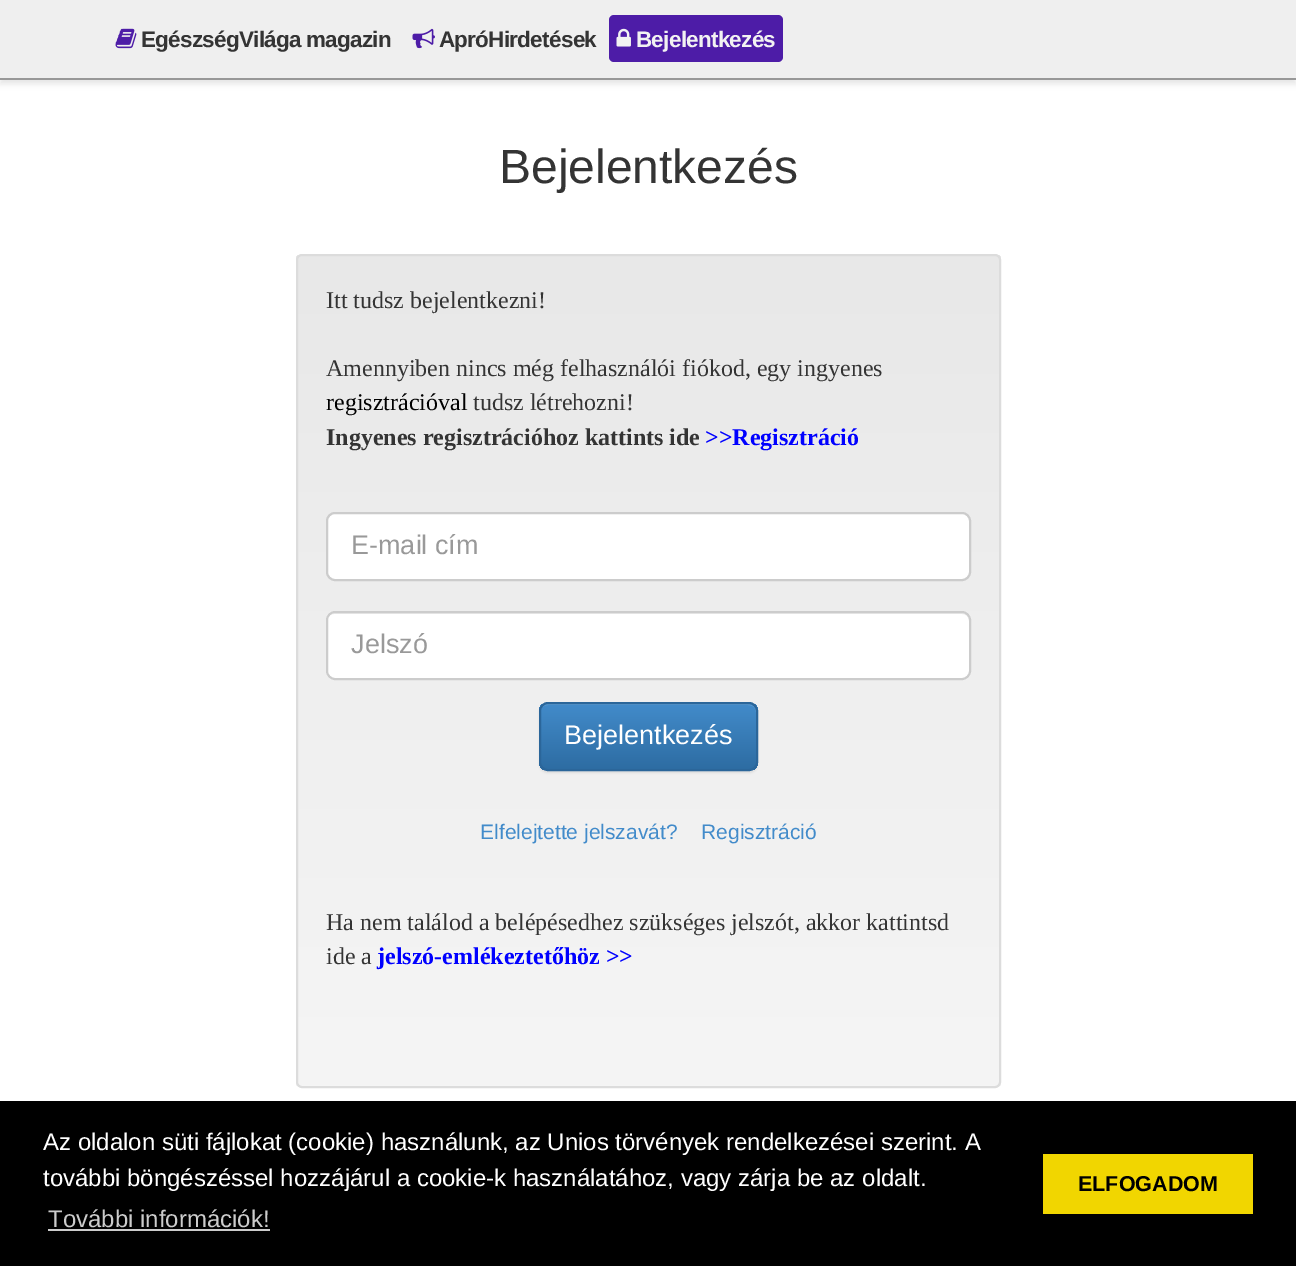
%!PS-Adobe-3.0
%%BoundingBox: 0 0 1296 1266
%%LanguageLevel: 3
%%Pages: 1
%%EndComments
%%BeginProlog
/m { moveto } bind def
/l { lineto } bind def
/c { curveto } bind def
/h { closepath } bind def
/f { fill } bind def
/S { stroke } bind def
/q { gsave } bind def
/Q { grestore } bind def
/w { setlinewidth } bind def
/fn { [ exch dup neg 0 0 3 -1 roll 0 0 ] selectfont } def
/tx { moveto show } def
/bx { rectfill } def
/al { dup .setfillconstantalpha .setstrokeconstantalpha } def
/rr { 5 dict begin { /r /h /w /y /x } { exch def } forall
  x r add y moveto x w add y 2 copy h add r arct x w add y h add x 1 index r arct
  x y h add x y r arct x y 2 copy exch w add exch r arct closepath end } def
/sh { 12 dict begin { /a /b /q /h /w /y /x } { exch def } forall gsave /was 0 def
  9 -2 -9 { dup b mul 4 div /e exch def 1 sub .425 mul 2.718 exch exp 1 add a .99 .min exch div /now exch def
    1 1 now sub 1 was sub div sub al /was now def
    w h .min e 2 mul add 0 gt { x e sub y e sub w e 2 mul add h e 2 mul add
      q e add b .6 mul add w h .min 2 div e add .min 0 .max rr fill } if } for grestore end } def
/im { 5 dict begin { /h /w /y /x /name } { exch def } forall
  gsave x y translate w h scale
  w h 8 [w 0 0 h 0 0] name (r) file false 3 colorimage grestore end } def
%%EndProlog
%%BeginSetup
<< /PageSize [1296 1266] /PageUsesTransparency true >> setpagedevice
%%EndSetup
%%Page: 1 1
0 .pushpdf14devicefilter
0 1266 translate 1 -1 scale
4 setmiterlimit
1 setgray
0 0 1296 1266 bx
0 setgray
0 5 1296 79 0 3 0.1 sh
0.937 setgray
0 0 1296 78 bx
0.596 setgray
0 78 1296 2 bx
(image0.raw) 115 28 22 21 im
/LiberationSans-Bold 22.5 fn
0.204 setgray
141 47 m -0.75 0 (EgészségVilága magazin) ashow
(image1.raw) 412 28 23 21 im
439 47 m -0.75 0 (ApróHirdetések) ashow
0.302 0.11 0.655 setrgbcolor
609 15 174 47 5 rr f
(image2.raw) 616 28 15 19 im
0.949 setgray
636 47 m -0.75 0 (Bejelentkezés) ashow
/LiberationSans-Regular 48 fn
0.204 setgray
(Bejelentkezés) 499 183 tx
q
296 254 705 834 6 rr clip newpath
q 296 255 m 1001 255 l 1001 1086 l 296 1086 l h clip newpath
<< /ShadingType 2 /ColorSpace /DeviceRGB /Coords [648 255 648 1086] /Extend [true true] /Function << /FunctionType 2 /Domain [0 1] /C0 [0.91 0.91 0.91] /C1 [0.961 0.961 0.961] /N 1 >> >> shfill Q
Q
0.863 setgray
2 w
297 255 703 832 5 rr S
/LiberationSerif-Regular 24 fn
0.204 setgray
(Itt tudsz bejelentkezni!) 326 308 tx
(Amennyiben nincs még felhasználói fiókod, egy ingyenes) 326 376 tx
0 setgray
(regisztrációval) 326 410 tx
0.204 setgray
(tudsz létrehozni!) 473 410 tx
/LiberationSerif-Bold 24 fn
(Ingyenes regisztrációhoz kattints ide) 326 445 tx
0 0 1 setrgbcolor
(>>Regisztráció) 705 445 tx
1 setgray
327 513 643 67 8 rr q f Q
0.8 setgray
S
/LiberationSans-Regular 27 fn
0.6 setgray
(E-mail cím) 351 554 tx
1 setgray
326 611 645 69 9 rr f
0.925 setgray
334 614 m 962 614 l 966 614 969 617 969 621 c 969 616 966 612 961 612 c 335 612 l 330 612 327 616 327 621 c 327 617 330 614 334 614 c h f
0.8 setgray
327 612 643 67 8 rr S
0.6 setgray
(Jelszó) 351 653 tx
0 setgray
539 704 219 69 9 1 0.07 sh
q
539 702 219 69 9 rr clip newpath
q 539 704 m 758 704 l 758 770 l 539 770 l h clip newpath
<< /ShadingType 2 /ColorSpace /DeviceRGB /Coords [648 704 648 770] /Extend [true true] /Function << /FunctionType 2 /Domain [0 1] /C0 [0.259 0.545 0.792] /C1 [0.176 0.424 0.635] /N 1 >> >> shfill Q
Q
0.369 0.612 0.824 setrgbcolor
548 705 m 748 705 l 753 705 756 708 756 712 c 756 708 752 704 748 704 c 548 704 l 544 704 540 708 540 712 c 540 708 543 705 548 705 c h f
0.169 0.4 0.604 setrgbcolor
540 703 217 67 8 rr S
1 setgray
(Bejelentkezés) 564 744 tx
/LiberationSans-Regular 21 fn
0.259 0.545 0.792 setrgbcolor
(Elfelejtette jelszavát?) 480 839 tx
(Regisztráció) 701 839 tx
/LiberationSerif-Regular 24 fn
0.204 setgray
(Ha nem találod a belépésedhez szükséges jelszót, akkor kattintsd) 326 930 tx
(ide a) 326 964 tx
/LiberationSerif-Bold 24 fn
0 0 1 setrgbcolor
(jelszó-emlékeztetőhöz >>) 377 964 tx
0 setgray
0 1101 1296 165 bx
/LiberationSans-Regular 24 fn
1 setgray
(Az oldalon süti fájlokat \(cookie\) használunk, az Unios törvények rendelkezései szerint. A) 43 1150 tx
(további böngészéssel hozzájárul a cookie-k használatához, vagy zárja be az oldalt.) 43 1186 tx
0.8 setgray
(További információk!) 48 1227 tx
48 1229 222 2 bx
0.945 0.839 0 setrgbcolor
1043 1154 210 60 bx
/LiberationSans-Bold 21.5 fn
0 setgray
(ELFOGADOM) 1078 1191 tx
.poppdf14devicefilter showpage
%%EOF
